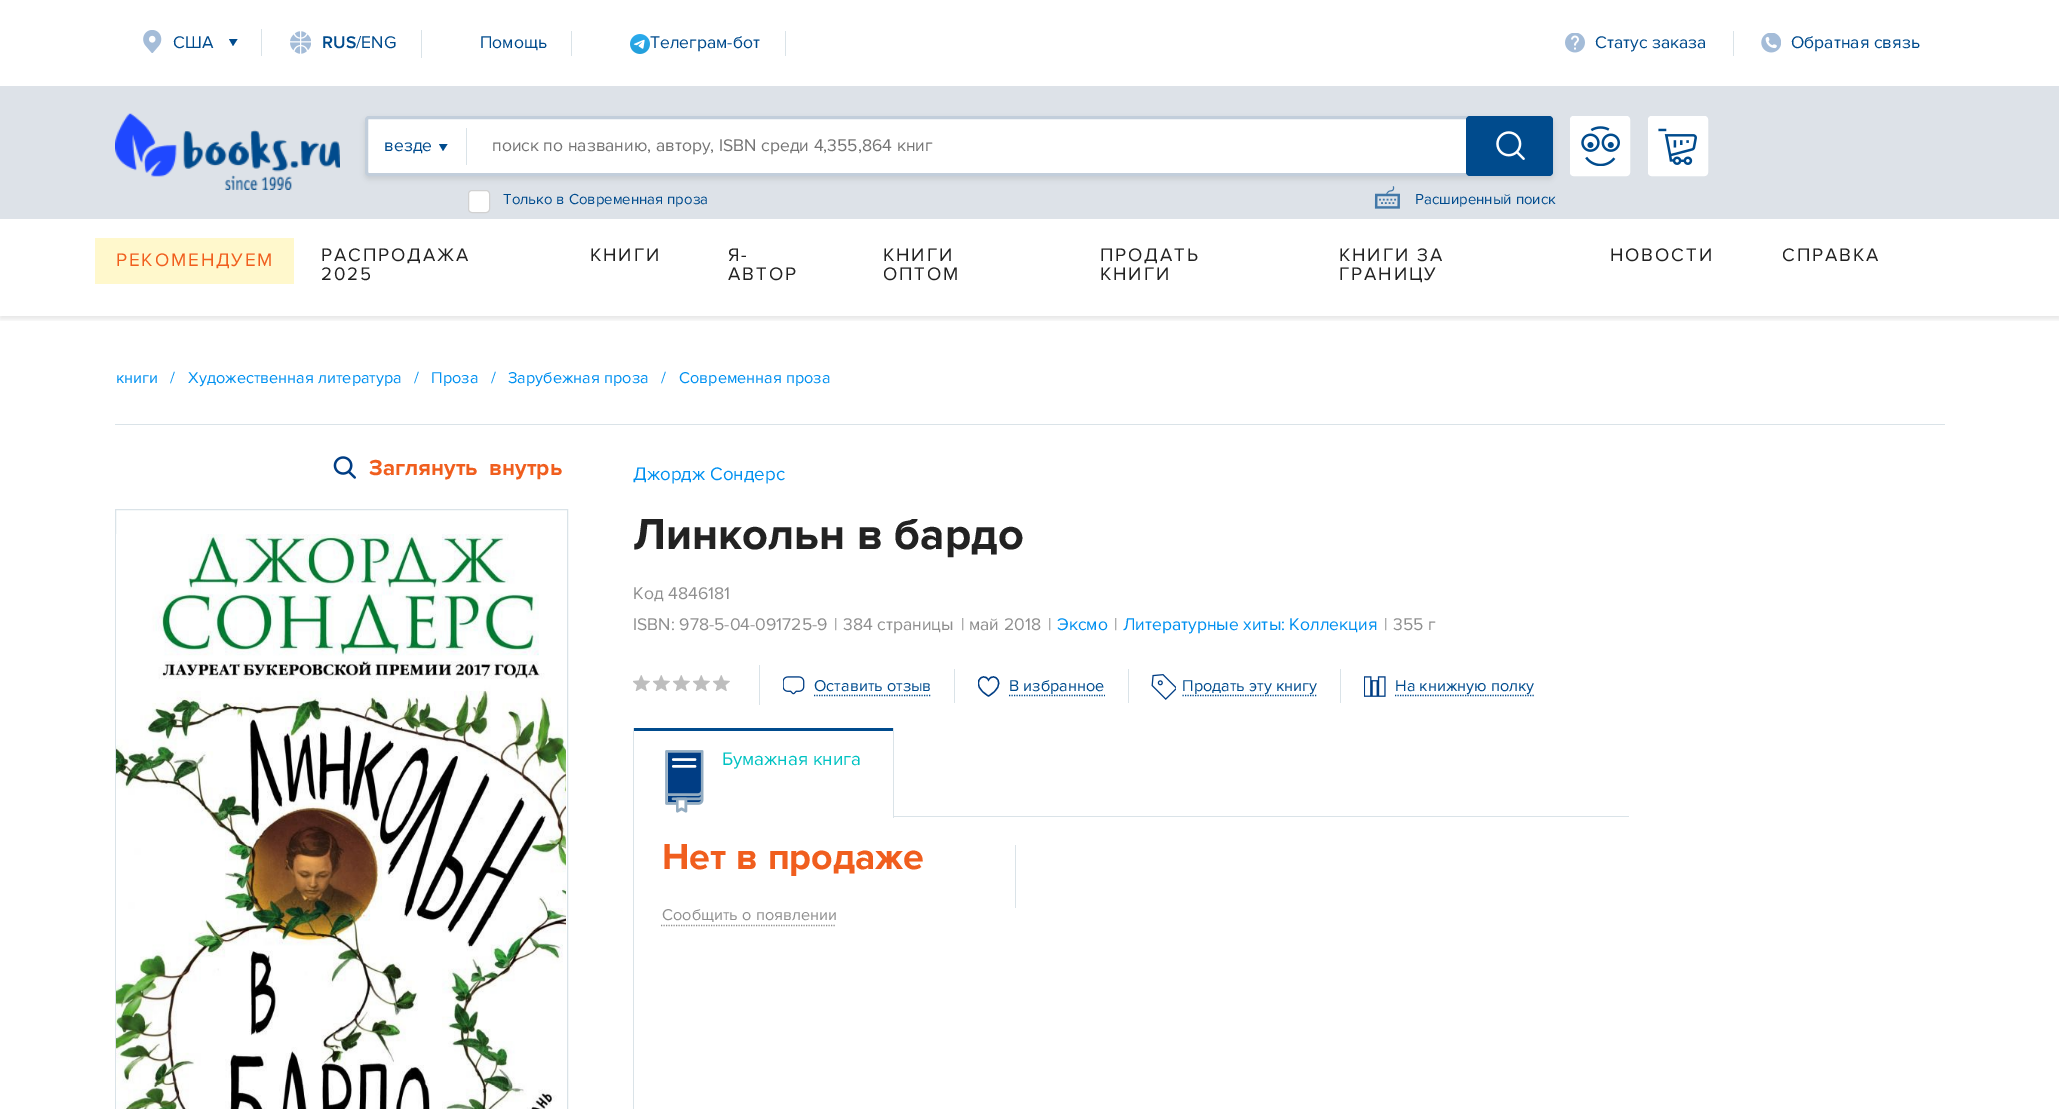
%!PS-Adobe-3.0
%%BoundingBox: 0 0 2059 1109
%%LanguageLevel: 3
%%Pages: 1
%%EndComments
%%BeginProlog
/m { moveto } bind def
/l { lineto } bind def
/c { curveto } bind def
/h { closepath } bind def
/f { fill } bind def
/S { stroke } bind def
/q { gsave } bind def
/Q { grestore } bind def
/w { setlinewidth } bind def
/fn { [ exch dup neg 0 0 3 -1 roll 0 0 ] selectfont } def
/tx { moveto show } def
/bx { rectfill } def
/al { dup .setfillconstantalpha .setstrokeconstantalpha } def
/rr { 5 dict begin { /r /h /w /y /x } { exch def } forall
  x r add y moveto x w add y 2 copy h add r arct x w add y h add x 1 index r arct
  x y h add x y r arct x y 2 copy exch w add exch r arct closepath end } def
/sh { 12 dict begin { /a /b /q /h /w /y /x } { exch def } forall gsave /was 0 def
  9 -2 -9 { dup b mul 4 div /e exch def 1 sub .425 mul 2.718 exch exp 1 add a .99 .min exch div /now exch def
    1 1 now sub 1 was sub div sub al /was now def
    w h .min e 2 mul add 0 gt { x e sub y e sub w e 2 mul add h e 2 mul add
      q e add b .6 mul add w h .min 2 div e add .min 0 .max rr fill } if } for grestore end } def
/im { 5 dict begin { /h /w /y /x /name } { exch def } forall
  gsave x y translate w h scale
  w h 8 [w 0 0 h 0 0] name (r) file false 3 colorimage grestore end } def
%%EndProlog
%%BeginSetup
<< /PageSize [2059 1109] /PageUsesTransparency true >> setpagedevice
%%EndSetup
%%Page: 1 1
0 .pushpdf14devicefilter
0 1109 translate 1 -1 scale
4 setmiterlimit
1 setgray
0 0 2059 1109 bx
q
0 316 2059 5 rectclip
0 setgray
0 3 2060 316 0 2.5 0.1 sh
Q
0.855 0.89 0.91 setrgbcolor
261 29 1 27 bx
(image0.raw) 143 30 19 23 im
/ProximaNova-Regular 17.5 fn
0 0.294 0.553 setrgbcolor
(США) 173 48 tx
233 46 m 229 39 l 237.5 39 l 233 46 l eofill
0.855 0.89 0.91 setrgbcolor
421 30 1 28 bx
(image1.raw) 290 31 21 23 im
/ProximaNova-SemiBold 17.5 fn
0 0.294 0.553 setrgbcolor
(RUS) 322 48 tx
/ProximaNova-Regular 17.5 fn
(/ENG) 356 48 tx
0.855 0.89 0.91 setrgbcolor
571 31 1 25 bx
0 0.294 0.553 setrgbcolor
(Помощь) 480 48 tx
0.855 0.89 0.91 setrgbcolor
785 31 1 25 bx
(image2.raw) 630 34 20 20 im
0 0.294 0.553 setrgbcolor
(Телеграм-бот) 650 48 tx
0.855 0.89 0.91 setrgbcolor
1733 31 1 25 bx
(image3.raw) 1565 33 20 20 im
0 0.294 0.553 setrgbcolor
(Статус заказа) 1595 48 tx
(image4.raw) 1761 33 20 20 im
(Обратная связь) 1791 48 tx
0.867 0.886 0.91 setrgbcolor
0 86 2059 133 bx
(image5.raw) 115 113 225 77 im
0 setgray
365 119 1188 60 4 2.5 0.1 sh
1 setgray
366.5 117.5 1185 57 2.5 rr q f Q
0.761 0.808 0.859 setrgbcolor
3 w
S
0.855 0.89 0.91 setrgbcolor
466 128 1 37 bx
0 0.294 0.553 setrgbcolor
(везде) 384 151 tx
443 151 m 439 144 l 447.5 144 l 443 151 l eofill
0.459 setgray
(поиск по названию, автору, ISBN среди 4,355,864 книг) 492 151 tx
0 0.294 0.553 setrgbcolor
1466 116 87 60 4 rr f
(image6.raw) 1496 131 29 29 im
1 setgray
468.5 190.5 21 22 3.5 rr q f Q
0.82 setgray
1 w
S
/ProximaNova-Regular 15 fn
0 0.294 0.553 setrgbcolor
(Только в Современная проза) 503 204 tx
(image7.raw) 1374 186 26 23 im
(Расширенный поиск) 1415 204 tx
1 setgray
1570 116 60 60 4 rr f
(image8.raw) 1581 126 39 40 im
3 w
1571.5 117.5 57 57 2.5 rr S
1648 116 60 60 4 rr f
(image9.raw) 1658 128 39 37 im
1649.5 117.5 57 57 2.5 rr S
1 0.973 0.8 setrgbcolor
95 238 199 46 bx
/ProximaNova-Regular 18.75 fn
0.941 0.369 0.118 setrgbcolor
116 266 m 1.9 0 (РЕКОМЕНДУЕМ) ashow
0.133 setgray
321 261 m 1.9 0 (РАСПРОДАЖА) ashow
321 280 m 1.9 0 (2025) ashow
590 261 m 1.9 0 (КНИГИ) ashow
728 261 m 1.9 0 (Я-) ashow
728 280 m 1.9 0 (АВТОР) ashow
883 261 m 1.9 0 (КНИГИ) ashow
883 280 m 1.9 0 (ОПТОМ) ashow
1100 261 m 1.9 0 (ПРОДАТЬ) ashow
1100 280 m 1.9 0 (КНИГИ) ashow
1339 261 m 1.9 0 (КНИГИ ЗА) ashow
1339 280 m 1.9 0 (ГРАНИЦУ) ashow
1610 261 m 1.9 0 (НОВОСТИ) ashow
1782 261 m 1.9 0 (СПРАВКА) ashow
0.855 0.89 0.91 setrgbcolor
115 424 1830 1 bx
/ProximaNova-Regular 16.25 fn
0 0.565 0.941 setrgbcolor
(книги) 116 383 tx
(/) 170 383 tx
(Художественная литература) 188 383 tx
(/) 414 383 tx
(Проза) 431 383 tx
(/) 491 383 tx
(Зарубежная проза) 508 383 tx
(/) 661 383 tx
(Современная проза) 679 383 tx
(image10.raw) 333 456 23 23 im
/ProximaNova-Bold 22.5 fn
0.941 0.369 0.118 setrgbcolor
(Заглянуть) 369 475 tx
(внутрь) 489 475 tx
0.855 0.89 0.91 setrgbcolor
1 w
115.5 509.5 452 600 rectstroke
(image11.raw) 116 534 450 575 im
/ProximaNova-Regular 18.75 fn
0 0.565 0.941 setrgbcolor
(Джордж Сондерс) 633 480 tx
/ProximaNova-Bold 45 fn
0.133 setgray
(Линкольн в бардо) 633 549 tx
/ProximaNova-Regular 17.5 fn
0.561 setgray
(Код 4846181) 633 599 tx
(ISBN: 978-5-04-091725-9) 633 630 tx
(|) 834 630 tx
(384 страницы) 843 630 tx
(|) 961 630 tx
(май 2018) 969 630 tx
(|) 1048 630 tx
0 0.565 0.941 setrgbcolor
(Эксмо) 1057 630 tx
0.561 setgray
(|) 1114 630 tx
0 0.565 0.941 setrgbcolor
(Литературные хиты: Коллекция) 1123 630 tx
0.561 setgray
(|) 1384 630 tx
(355 г) 1393 630 tx
0.855 0.89 0.91 setrgbcolor
759 665 1 40 bx
(image12.raw) 633 675 17 16 im
(image12.raw) 653 675 17 16 im
(image12.raw) 673 675 17 16 im
(image12.raw) 693 675 17 16 im
(image12.raw) 713 675 17 16 im
954 669 1 34 bx
0 0.294 0.553 setrgbcolor
1.2 w
[1.25 1.25] 0 setdash
814 695.5 m 931 695.5 l S
(image13.raw) 783 676 22 19 im
/ProximaNova-Regular 16.25 fn
(Оставить отзыв) 814 691 tx
0.855 0.89 0.91 setrgbcolor
1128 669 1 34 bx
0 0.294 0.553 setrgbcolor
1009 695.5 m 1105 695.5 l S
q
978 676 22 22 rectclip
0 0.239 0.518 setrgbcolor
1.3 w
[] 0 setdash
988.5 696 m 968.5 684.5 983 670.5 988.5 680 c 994 670.5 1008.5 684.5 988.5 696 c h S
Q
(В избранное) 1009 691 tx
0.855 0.89 0.91 setrgbcolor
1340 669 1 34 bx
0 0.294 0.553 setrgbcolor
1182.5 695.5 m 1317.5 695.5 l S
(image14.raw) 1151 674 25 26 im
(Продать эту книгу) 1182 691 tx
1395 695.5 m 1534 695.5 l S
(image15.raw) 1364 676 22 21 im
(На книжную полку) 1395 691 tx
0.855 0.89 0.91 setrgbcolor
894 816 735 1 bx
633 728 1 381 bx
0 0.294 0.553 setrgbcolor
634 728 259 3 bx
0.855 0.89 0.91 setrgbcolor
893 728 1 90 bx
(image16.raw) 665 750 39 63 im
/ProximaNova-Regular 18.75 fn
0 0.761 0.761 setrgbcolor
(Бумажная книга) 722 765 tx
/ProximaNova-Bold 37.5 fn
0.941 0.369 0.118 setrgbcolor
(Нет в продаже) 662 869 tx
/ProximaNova-Regular 16.25 fn
0.561 setgray
(Сообщить о появлении) 662 920 tx
661 925.5 m 836 925.5 l S
0.855 0.89 0.91 setrgbcolor
1015 845 1 63 bx
.poppdf14devicefilter showpage
%%EOF
